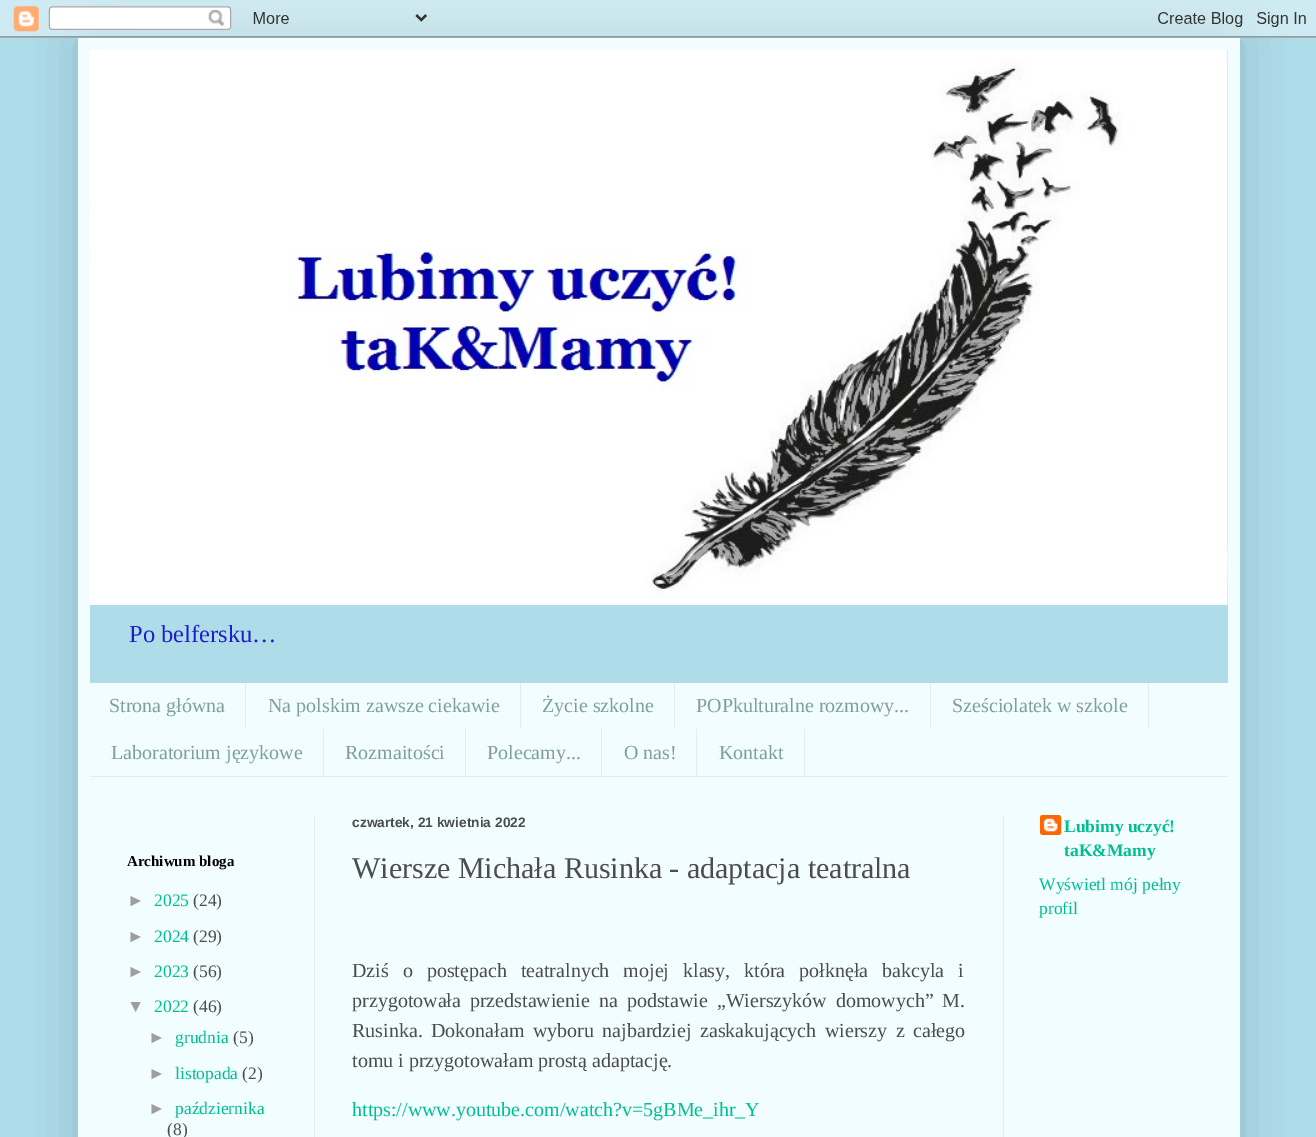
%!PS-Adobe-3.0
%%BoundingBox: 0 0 1316 1137
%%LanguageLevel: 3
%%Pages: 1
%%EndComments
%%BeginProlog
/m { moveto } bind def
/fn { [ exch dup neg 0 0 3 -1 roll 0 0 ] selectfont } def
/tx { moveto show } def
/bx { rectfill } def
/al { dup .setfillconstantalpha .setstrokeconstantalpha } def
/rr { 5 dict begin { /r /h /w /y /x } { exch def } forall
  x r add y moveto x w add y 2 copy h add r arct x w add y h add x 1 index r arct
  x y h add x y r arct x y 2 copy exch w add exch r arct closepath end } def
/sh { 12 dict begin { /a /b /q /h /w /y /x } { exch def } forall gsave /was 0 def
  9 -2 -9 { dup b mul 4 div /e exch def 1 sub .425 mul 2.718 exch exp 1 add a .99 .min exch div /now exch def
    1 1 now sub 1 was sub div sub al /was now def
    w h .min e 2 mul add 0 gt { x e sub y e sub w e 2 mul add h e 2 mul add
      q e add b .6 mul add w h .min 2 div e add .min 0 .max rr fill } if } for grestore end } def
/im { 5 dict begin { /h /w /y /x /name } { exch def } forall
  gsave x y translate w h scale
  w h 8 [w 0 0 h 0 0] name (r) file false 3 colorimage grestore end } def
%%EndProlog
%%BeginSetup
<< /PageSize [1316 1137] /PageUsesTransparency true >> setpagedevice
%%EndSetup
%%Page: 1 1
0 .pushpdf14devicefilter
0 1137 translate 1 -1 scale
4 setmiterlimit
0.682 0.863 0.914 setrgbcolor
0 0 1316 1137 bx
0 setgray
78 38 1162 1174 0 25 0.15 sh
(image0.raw) 0 0 1316 38 im
0.949 0.992 1 setrgbcolor
78 38 1162 1099 bx
0.682 0.863 0.914 setrgbcolor
90 50 1138 633 bx
(image1.raw) 1227 50 1 546 im
(image2.raw) 90 50 1138 555 im
/LiberationSerif-Regular 24.5 fn
0.118 0.118 0.788 setrgbcolor
(Po belfersku…) 129 642 tx
0.878 0.937 0.933 setrgbcolor
90 776 1138 1 bx
245 683 1 46 bx
/LiberationSerif-Regular 20 fn
0.498 0.624 0.616 setrgbcolor
(Strona główna) 109 712 tx
0.878 0.937 0.933 setrgbcolor
520 683 1 46 bx
0.498 0.624 0.616 setrgbcolor
(Na polskim zawsze ciekawie) 268 712 tx
0.878 0.937 0.933 setrgbcolor
674 683 1 46 bx
0.498 0.624 0.616 setrgbcolor
(Życie szkolne) 542 712 tx
0.878 0.937 0.933 setrgbcolor
930 683 1 46 bx
0.498 0.624 0.616 setrgbcolor
(POPkulturalne rozmowy...) 696 712 tx
0.878 0.937 0.933 setrgbcolor
1148 683 1 46 bx
0.498 0.624 0.616 setrgbcolor
(Sześciolatek w szkole) 952 712 tx
0.878 0.937 0.933 setrgbcolor
323 729 1 47 bx
0.498 0.624 0.616 setrgbcolor
(Laboratorium językowe) 111 759 tx
0.878 0.937 0.933 setrgbcolor
465 729 1 47 bx
0.498 0.624 0.616 setrgbcolor
(Rozmaitości) 345 759 tx
0.878 0.937 0.933 setrgbcolor
601 729 1 47 bx
0.498 0.624 0.616 setrgbcolor
(Polecamy...) 487 759 tx
0.878 0.937 0.933 setrgbcolor
696 729 1 47 bx
0.498 0.624 0.616 setrgbcolor
(O nas!) 624 759 tx
0.878 0.937 0.933 setrgbcolor
804 729 1 47 bx
0.498 0.624 0.616 setrgbcolor
(Kontakt) 719 759 tx
0.878 0.937 0.933 setrgbcolor
314 815 1 322 bx
1003 815 1 322 bx
/LiberationSerif-Bold 15 fn
0 setgray
(Archiwum bloga) 127 866 tx
/LiberationSans-Regular 17.5 fn
0.62 setgray
(►) 127 906 tx
/LiberationSerif-Regular 17.5 fn
0 0.745 0.573 setrgbcolor
(2025) 154 906 tx
0.298 setgray
(\(24\)) 193 906 tx
/LiberationSans-Regular 17.5 fn
0.62 setgray
(►) 127 942 tx
/LiberationSerif-Regular 17.5 fn
0 0.745 0.573 setrgbcolor
(2024) 154 942 tx
0.298 setgray
(\(29\)) 193 942 tx
/LiberationSans-Regular 17.5 fn
0.62 setgray
(►) 127 977 tx
/LiberationSerif-Regular 17.5 fn
0 0.745 0.573 setrgbcolor
(2023) 154 977 tx
0.298 setgray
(\(56\)) 193 977 tx
/LiberationSans-Regular 17.5 fn
0.62 setgray
(▼) 127 1012 tx
/LiberationSerif-Regular 17.5 fn
0 0.745 0.573 setrgbcolor
(2022) 154 1012 tx
0.298 setgray
(\(46\)) 193 1012 tx
/LiberationSans-Regular 17.5 fn
0.62 setgray
(►) 148 1043 tx
/LiberationSerif-Regular 17.5 fn
0 0.745 0.573 setrgbcolor
(grudnia) 175 1043 tx
0.298 setgray
(\(5\)) 233 1043 tx
/LiberationSans-Regular 17.5 fn
0.62 setgray
(►) 148 1079 tx
/LiberationSerif-Regular 17.5 fn
0 0.745 0.573 setrgbcolor
(listopada) 175 1079 tx
0.298 setgray
(\(2\)) 242 1079 tx
/LiberationSans-Regular 17.5 fn
0.62 setgray
(►) 148 1114 tx
/LiberationSerif-Regular 17.5 fn
0 0.745 0.573 setrgbcolor
(października) 175 1114 tx
0.298 setgray
(\(8\)) 167 1135 tx
/LiberationSans-Bold 13.75 fn
(czwartek, 21 kwietnia 2022) 352 827 tx
/LiberationSerif-Regular 30 fn
(Wiersze Michała Rusinka - adaptacja teatralna) 352 878 tx
/LiberationSerif-Regular 20 fn
352 977 m 9 0 32 (Dziś o postępach teatralnych mojej klasy, która połknęła bakcyla i) widthshow
352 1007 m 4 0 32 (przygotowała przedstawienie na podstawie „Wierszyków domowych” M.) widthshow
352 1037 m 3.5 0 32 (Rusinka. Dokonałam wyboru najbardziej zaskakujących wierszy z całego) widthshow
(tomu i przygotowałam prostą adaptację.) 352 1067 tx
0 0.745 0.573 setrgbcolor
(https://www.youtube.com/watch?v=5gBMe_ihr_Y) 352 1116 tx
(image3.raw) 1040 815 22 20 im
/LiberationSerif-Bold 17.5 fn
(Lubimy uczyć!) 1064 832 tx
(taK&Mamy) 1064 856 tx
/LiberationSerif-Regular 17.5 fn
(Wyświetl mój pełny) 1039 890 tx
(profil) 1039 914 tx
.poppdf14devicefilter showpage
%%EOF
